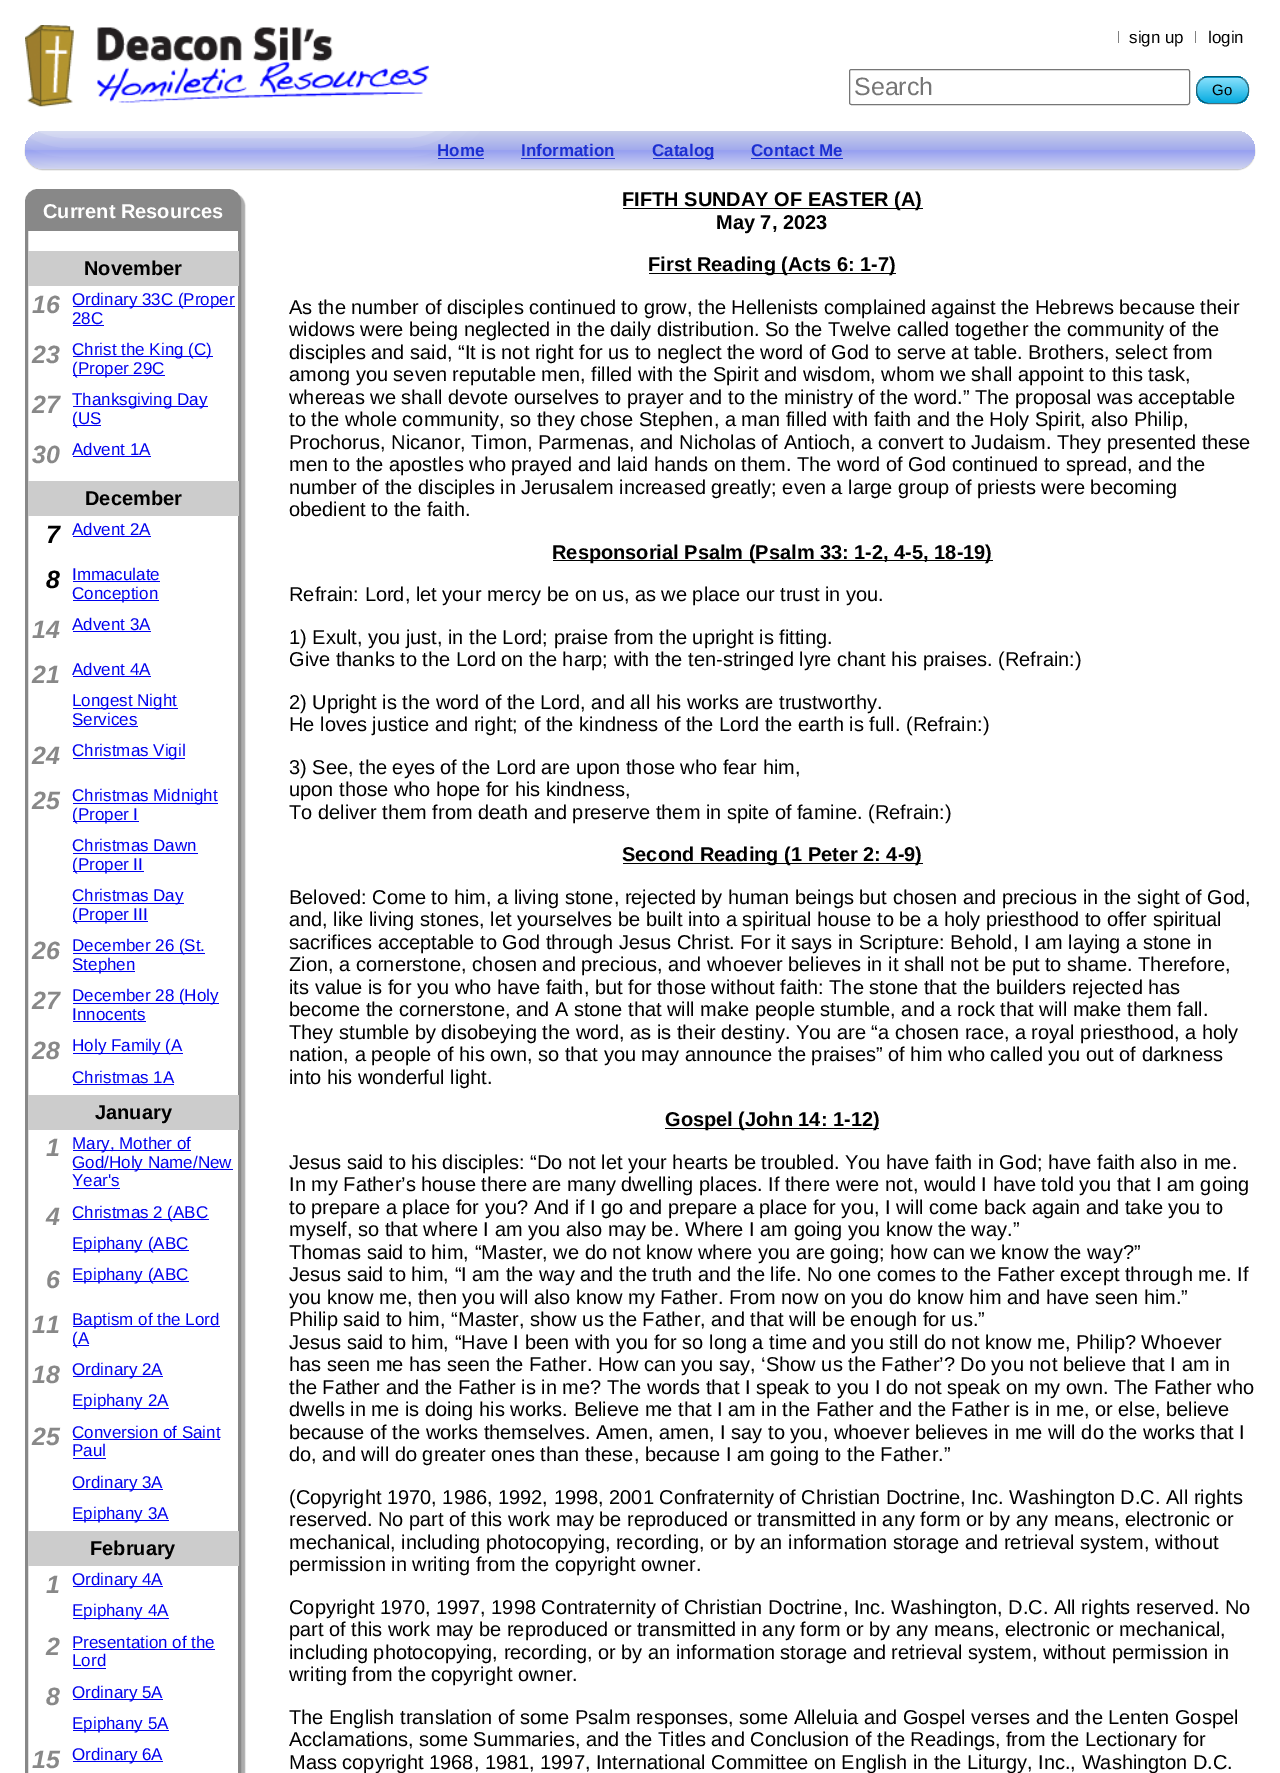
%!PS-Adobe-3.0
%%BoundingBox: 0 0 1280 1773
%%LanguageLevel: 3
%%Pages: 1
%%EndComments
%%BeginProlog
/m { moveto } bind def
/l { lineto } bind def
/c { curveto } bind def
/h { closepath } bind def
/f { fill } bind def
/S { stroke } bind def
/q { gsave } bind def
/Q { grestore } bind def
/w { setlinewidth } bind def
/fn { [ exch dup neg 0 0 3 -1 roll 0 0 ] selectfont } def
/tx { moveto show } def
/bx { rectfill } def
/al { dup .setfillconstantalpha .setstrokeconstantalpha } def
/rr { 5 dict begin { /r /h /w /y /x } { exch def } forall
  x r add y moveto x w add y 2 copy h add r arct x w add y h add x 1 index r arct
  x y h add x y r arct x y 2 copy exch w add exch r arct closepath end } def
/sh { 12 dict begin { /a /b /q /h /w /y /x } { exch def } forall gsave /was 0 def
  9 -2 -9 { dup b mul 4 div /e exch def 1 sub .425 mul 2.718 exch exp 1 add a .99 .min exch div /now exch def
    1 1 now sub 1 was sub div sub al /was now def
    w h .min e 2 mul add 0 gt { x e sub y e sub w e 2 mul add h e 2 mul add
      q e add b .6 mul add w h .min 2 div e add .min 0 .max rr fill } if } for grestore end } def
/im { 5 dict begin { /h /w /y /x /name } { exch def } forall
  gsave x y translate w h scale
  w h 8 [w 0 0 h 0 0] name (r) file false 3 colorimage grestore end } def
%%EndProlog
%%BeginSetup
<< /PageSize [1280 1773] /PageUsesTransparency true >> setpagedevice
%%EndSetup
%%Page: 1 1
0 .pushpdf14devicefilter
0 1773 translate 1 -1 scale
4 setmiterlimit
1 setgray
0 0 1280 1773 bx
0.765 setgray
25 133 1230 37 18.5 0.5 1 sh
q 25 131 1230 38 19 rr clip newpath
<< /ShadingType 2 /ColorSpace /DeviceRGB /Coords [640 131 640 169] /Extend [true true] /Function << /FunctionType 3 /Domain [0 1] /Functions [<< /FunctionType 2 /Domain [0 1] /C0 [0.788 0.808 0.918] /C1 [0.631 0.667 0.929] /N 1 >> << /FunctionType 2 /Domain [0 1] /C0 [0.631 0.667 0.929] /C1 [0.588 0.627 0.945] /N 1 >> << /FunctionType 2 /Domain [0 1] /C0 [0.588 0.627 0.945] /C1 [0.816 0.831 0.937] /N 1 >>] /Bounds [0.5 0.51] /Encode [0 1 0 1 0 1] >> >> shfill Q
q
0 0 m 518 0 l 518 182 l 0 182 l h 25 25 m 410 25 l 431 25 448 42 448 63 c 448 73 l 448 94 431 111 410 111 c 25 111 l h eoclip newpath
1 setgray
13 13 447 111 50 19 1 sh
Q
(image0.raw) 25 25 404 82 im
0.502 setgray
1118 31 1 12 bx
/LiberationSans-Regular 17 fn
0 setgray
(sign up) 1129 43 tx
0.502 setgray
1195 31 1 12 bx
0 setgray
(login) 1208 43 tx
0.463 setgray
849.5 69.5 340 35 2 rr S
/LiberationSans-Regular 25 fn
0.459 setgray
(Search) 854 95 tx
q
1196 76 53 28 13 rr clip newpath
q 1196 76 m 1249 76 l 1249 78 l 1196 78 l h clip newpath
<< /ShadingType 2 /ColorSpace /DeviceRGB /Coords [1223 53 1223 78] /Extend [true true] /Function << /FunctionType 3 /Domain [0 1] /Functions [<< /FunctionType 2 /Domain [0 1] /C0 [0.529 0.878 0.992] /C1 [0.325 0.796 0.945] /N 1 >> << /FunctionType 2 /Domain [0 1] /C0 [0.325 0.796 0.945] /C1 [0.02 0.671 0.878] /N 1 >>] /Bounds [0.4] /Encode [0 1 0 1] >> >> shfill Q
q 1196 78 m 1249 78 l 1249 103 l 1196 103 l h clip newpath
<< /ShadingType 2 /ColorSpace /DeviceRGB /Coords [1223 78 1223 103] /Extend [true true] /Function << /FunctionType 3 /Domain [0 1] /Functions [<< /FunctionType 2 /Domain [0 1] /C0 [0.529 0.878 0.992] /C1 [0.325 0.796 0.945] /N 1 >> << /FunctionType 2 /Domain [0 1] /C0 [0.325 0.796 0.945] /C1 [0.02 0.671 0.878] /N 1 >>] /Bounds [0.4] /Encode [0 1 0 1] >> >> shfill Q
q 1196 103 m 1249 103 l 1249 104 l 1196 104 l h clip newpath
<< /ShadingType 2 /ColorSpace /DeviceRGB /Coords [1223 103 1223 128] /Extend [true true] /Function << /FunctionType 3 /Domain [0 1] /Functions [<< /FunctionType 2 /Domain [0 1] /C0 [0.529 0.878 0.992] /C1 [0.325 0.796 0.945] /N 1 >> << /FunctionType 2 /Domain [0 1] /C0 [0.325 0.796 0.945] /C1 [0.02 0.671 0.878] /N 1 >>] /Bounds [0.4] /Encode [0 1 0 1] >> >> shfill Q
Q
0.5 al
0 setgray
1196.5 76.5 52 27 12.5 rr S
/LiberationSans-Regular 15 fn
1 al
(Go) 1212 95 tx
/LiberationSans-Bold 17 fn
0.11 0.184 0.824 setrgbcolor
(Home) 437 156 tx
438 158 46 1 bx
(Information) 521 156 tx
521 158 94 1 bx
653 158 61 1 bx
(Catalog) 652 156 tx
(Contact Me) 751 156 tx
751 158 92 1 bx
0.667 setgray
29 193 216 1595 13 0.5 1 sh
1 setgray
26.5 190.5 213 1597 11.5 rr q f Q
0.533 setgray
3 w
S
38 191 m 229 191 l 234.5 191 239 195.5 239 201 c 239 231 l 28 231 l 28 201 l 28 195.5 32.5 191 38 191 c h f
/LiberationSans-Bold 20 fn
1 setgray
(Current Resources) 43 218 tx
0.8 setgray
28 251 211 35 bx
0 setgray
(November) 84 275 tx
/LiberationSans-BoldItalic 25 fn
0.533 setgray
(16) 32 313 tx
0 0 0.933 setrgbcolor
73 306 162 1 bx
/LiberationSans-Regular 17 fn
(Ordinary 33C \(Proper) 72 305 tx
(28C) 72 324 tx
73 325 31 1 bx
/LiberationSans-BoldItalic 25 fn
0.533 setgray
(23) 32 363 tx
0 0 0.933 setrgbcolor
73 356 140 1 bx
/LiberationSans-Regular 17 fn
(Christ the King \(C\)) 72 355 tx
73 375 92 1 bx
(\(Proper 29C) 72 374 tx
/LiberationSans-BoldItalic 25 fn
0.533 setgray
(27) 32 413 tx
0 0 0.933 setrgbcolor
73 406 135 1 bx
/LiberationSans-Regular 17 fn
(Thanksgiving Day) 72 405 tx
73 425 28 1 bx
(\(US) 72 424 tx
/LiberationSans-BoldItalic 25 fn
0.533 setgray
(30) 32 463 tx
/LiberationSans-Regular 17 fn
0 0 0.933 setrgbcolor
(Advent 1A) 72 455 tx
73 456 78 1 bx
0.8 setgray
28 481 211 35 bx
/LiberationSans-Bold 20 fn
0 setgray
(December) 85 505 tx
/LiberationSans-BoldItalic 25 fn
(7) 46 543 tx
/LiberationSans-Regular 17 fn
0 0 0.933 setrgbcolor
(Advent 2A) 72 535 tx
73 536 78 1 bx
/LiberationSans-BoldItalic 25 fn
0 setgray
(8) 46 588 tx
/LiberationSans-Regular 17 fn
0 0 0.933 setrgbcolor
(Immaculate) 72 580 tx
73 581 87 1 bx
73 600 86 1 bx
(Conception) 72 599 tx
/LiberationSans-BoldItalic 25 fn
0.533 setgray
(14) 32 638 tx
/LiberationSans-Regular 17 fn
0 0 0.933 setrgbcolor
(Advent 3A) 72 630 tx
73 631 78 1 bx
/LiberationSans-BoldItalic 25 fn
0.533 setgray
(21) 32 683 tx
/LiberationSans-Regular 17 fn
0 0 0.933 setrgbcolor
(Advent 4A) 72 675 tx
73 676 78 1 bx
73 708 105 1 bx
(Longest Night) 72 706 tx
(Services) 72 725 tx
73 726 65 1 bx
/LiberationSans-BoldItalic 25 fn
0.533 setgray
(24) 32 764 tx
0 0 0.933 setrgbcolor
73 758 112 1 bx
/LiberationSans-Regular 17 fn
(Christmas Vigil) 72 756 tx
/LiberationSans-BoldItalic 25 fn
0.533 setgray
(25) 32 809 tx
0 0 0.933 setrgbcolor
73 803 145 1 bx
/LiberationSans-Regular 17 fn
(Christmas Midnight) 72 801 tx
73 821 66 1 bx
(\(Proper I) 72 820 tx
(Christmas Dawn) 72 851 tx
73 853 125 1 bx
73 871 71 1 bx
(\(Proper II) 72 870 tx
73 903 111 1 bx
(Christmas Day) 72 901 tx
73 921 75 1 bx
(\(Proper III) 72 920 tx
/LiberationSans-BoldItalic 25 fn
0.533 setgray
(26) 32 959 tx
0 0 0.933 setrgbcolor
73 953 132 1 bx
/LiberationSans-Regular 17 fn
(December 26 \(St.) 72 951 tx
73 971 62 1 bx
(Stephen) 72 970 tx
/LiberationSans-BoldItalic 25 fn
0.533 setgray
(27) 32 1009 tx
0 0 0.933 setrgbcolor
73 1003 146 1 bx
/LiberationSans-Regular 17 fn
(December 28 \(Holy) 72 1001 tx
(Innocents) 72 1020 tx
73 1021 73 1 bx
/LiberationSans-BoldItalic 25 fn
0.533 setgray
(28) 32 1059 tx
0 0 0.933 setrgbcolor
73 1053 110 1 bx
/LiberationSans-Regular 17 fn
(Holy Family \(A) 72 1051 tx
(Christmas 1A) 72 1083 tx
73 1084 101 1 bx
0.8 setgray
28 1095 211 35 bx
/LiberationSans-Bold 20 fn
0 setgray
(January) 95 1119 tx
/LiberationSans-BoldItalic 25 fn
0.533 setgray
(1) 46 1156 tx
0 0 0.933 setrgbcolor
73 1150 118 1 bx
/LiberationSans-Regular 17 fn
(Mary, Mother of) 72 1149 tx
73 1169 160 1 bx
(God/Holy Name/New) 72 1168 tx
(Year's) 72 1186 tx
73 1188 47 1 bx
/LiberationSans-BoldItalic 25 fn
0.533 setgray
(4) 46 1225 tx
0 0 0.933 setrgbcolor
73 1219 136 1 bx
/LiberationSans-Regular 17 fn
(Christmas 2 \(ABC) 72 1218 tx
73 1250 116 1 bx
(Epiphany \(ABC) 72 1249 tx
/LiberationSans-BoldItalic 25 fn
0.533 setgray
(6) 46 1288 tx
0 0 0.933 setrgbcolor
73 1281 116 1 bx
/LiberationSans-Regular 17 fn
(Epiphany \(ABC) 72 1280 tx
/LiberationSans-BoldItalic 25 fn
0.533 setgray
(11) 32 1333 tx
0 0 0.933 setrgbcolor
73 1326 147 1 bx
/LiberationSans-Regular 17 fn
(Baptism of the Lord) 72 1325 tx
73 1345 16 1 bx
(\(A) 72 1344 tx
/LiberationSans-BoldItalic 25 fn
0.533 setgray
(18) 32 1383 tx
0 0 0.933 setrgbcolor
73 1376 90 1 bx
/LiberationSans-Regular 17 fn
(Ordinary 2A) 72 1375 tx
73 1408 96 1 bx
(Epiphany 2A) 72 1406 tx
/LiberationSans-BoldItalic 25 fn
0.533 setgray
(25) 32 1445 tx
/LiberationSans-Regular 17 fn
0 0 0.933 setrgbcolor
(Conversion of Saint) 72 1438 tx
73 1439 147 1 bx
(Paul) 72 1456 tx
73 1458 33 1 bx
73 1489 90 1 bx
(Ordinary 3A) 72 1488 tx
73 1520 96 1 bx
(Epiphany 3A) 72 1519 tx
0.8 setgray
28 1531 211 35 bx
/LiberationSans-Bold 20 fn
0 setgray
(February) 90 1555 tx
/LiberationSans-BoldItalic 25 fn
0.533 setgray
(1) 46 1593 tx
0 0 0.933 setrgbcolor
73 1586 90 1 bx
/LiberationSans-Regular 17 fn
(Ordinary 4A) 72 1585 tx
73 1618 96 1 bx
(Epiphany 4A) 72 1616 tx
/LiberationSans-BoldItalic 25 fn
0.533 setgray
(2) 46 1655 tx
/LiberationSans-Regular 17 fn
0 0 0.933 setrgbcolor
(Presentation of the) 72 1648 tx
73 1649 142 1 bx
(Lord) 72 1666 tx
73 1668 33 1 bx
/LiberationSans-BoldItalic 25 fn
0.533 setgray
(8) 46 1705 tx
0 0 0.933 setrgbcolor
73 1699 90 1 bx
/LiberationSans-Regular 17 fn
(Ordinary 5A) 72 1698 tx
73 1730 96 1 bx
(Epiphany 5A) 72 1729 tx
/LiberationSans-BoldItalic 25 fn
0.533 setgray
(15) 32 1768 tx
0 0 0.933 setrgbcolor
73 1761 90 1 bx
/LiberationSans-Regular 17 fn
(Ordinary 6A) 72 1760 tx
0 setgray
623 208 300 1 bx
/LiberationSans-Bold 20 fn
(FIFTH SUNDAY OF EASTER \(A\)) 622 206 tx
(May 7, 2023) 716 229 tx
649 273 247 1 bx
(First Reading \(Acts 6: 1-7\)) 648 271 tx
/LiberationSans-Regular 20 fn
(As the number of disciples continued to grow, the Hellenists complained against the Hebrews because their) 289 314 tx
(widows were being neglected in the daily distribution. So the Twelve called together the community of the) 289 336 tx
(disciples and said, “It is not right for us to neglect the word of God to serve at table. Brothers, select from) 289 359 tx
(among you seven reputable men, filled with the Spirit and wisdom, whom we shall appoint to this task,) 289 381 tx
(whereas we shall devote ourselves to prayer and to the ministry of the word.” The proposal was acceptable) 289 404 tx
(to the whole community, so they chose Stephen, a man filled with faith and the Holy Spirit, also Philip,) 289 426 tx
(Prochorus, Nicanor, Timon, Parmenas, and Nicholas of Antioch, a convert to Judaism. They presented these) 289 449 tx
(men to the apostles who prayed and laid hands on them. The word of God continued to spread, and the) 289 471 tx
(number of the disciples in Jerusalem increased greatly; even a large group of priests were becoming) 289 494 tx
(obedient to the faith.) 289 516 tx
553 560 440 1 bx
/LiberationSans-Bold 20 fn
(Responsorial Psalm \(Psalm 33: 1-2, 4-5, 18-19\)) 552 559 tx
/LiberationSans-Regular 20 fn
(Refrain: Lord, let your mercy be on us, as we place our trust in you.) 289 601 tx
(1\) Exult, you just, in the Lord; praise from the upright is fitting.) 289 644 tx
(Give thanks to the Lord on the harp; with the ten-stringed lyre chant his praises. \(Refrain:\)) 289 666 tx
(2\) Upright is the word of the Lord, and all his works are trustworthy.) 289 709 tx
(He loves justice and right; of the kindness of the Lord the earth is full. \(Refrain:\)) 289 731 tx
(3\) See, the eyes of the Lord are upon those who fear him,) 289 774 tx
(upon those who hope for his kindness,) 289 796 tx
(To deliver them from death and preserve them in spite of famine. \(Refrain:\)) 289 819 tx
623 863 300 1 bx
/LiberationSans-Bold 20 fn
(Second Reading \(1 Peter 2: 4-9\)) 622 861 tx
/LiberationSans-Regular 20 fn
(Beloved: Come to him, a living stone, rejected by human beings but chosen and precious in the sight of God,) 289 904 tx
(and, like living stones, let yourselves be built into a spiritual house to be a holy priesthood to offer spiritual) 289 926 tx
(sacrifices acceptable to God through Jesus Christ. For it says in Scripture: Behold, I am laying a stone in) 289 949 tx
(Zion, a cornerstone, chosen and precious, and whoever believes in it shall not be put to shame. Therefore,) 289 971 tx
(its value is for you who have faith, but for those without faith: The stone that the builders rejected has) 289 994 tx
(become the cornerstone, and A stone that will make people stumble, and a rock that will make them fall.) 289 1016 tx
(They stumble by disobeying the word, as is their destiny. You are “a chosen race, a royal priesthood, a holy) 289 1039 tx
(nation, a people of his own, so that you may announce the praises” of him who called you out of darkness) 289 1061 tx
(into his wonderful light.) 289 1084 tx
665 1128 214 1 bx
/LiberationSans-Bold 20 fn
(Gospel \(John 14: 1-12\)) 665 1126 tx
/LiberationSans-Regular 20 fn
(Jesus said to his disciples: “Do not let your hearts be troubled. You have faith in God; have faith also in me.) 289 1169 tx
(In my Father’s house there are many dwelling places. If there were not, would I have told you that I am going) 289 1191 tx
(to prepare a place for you? And if I go and prepare a place for you, I will come back again and take you to) 289 1214 tx
(myself, so that where I am you also may be. Where I am going you know the way.”) 289 1236 tx
(Thomas said to him, “Master, we do not know where you are going; how can we know the way?”) 289 1259 tx
(Jesus said to him, “I am the way and the truth and the life. No one comes to the Father except through me. If) 289 1281 tx
(you know me, then you will also know my Father. From now on you do know him and have seen him.”) 289 1304 tx
(Philip said to him, “Master, show us the Father, and that will be enough for us.”) 289 1326 tx
(Jesus said to him, “Have I been with you for so long a time and you still do not know me, Philip? Whoever) 289 1349 tx
(has seen me has seen the Father. How can you say, ‘Show us the Father’? Do you not believe that I am in) 289 1371 tx
(the Father and the Father is in me? The words that I speak to you I do not speak on my own. The Father who) 289 1394 tx
(dwells in me is doing his works. Believe me that I am in the Father and the Father is in me, or else, believe) 289 1416 tx
(because of the works themselves. Amen, amen, I say to you, whoever believes in me will do the works that I) 289 1439 tx
(do, and will do greater ones than these, because I am going to the Father.”) 289 1461 tx
(\(Copyright 1970, 1986, 1992, 1998, 2001 Confraternity of Christian Doctrine, Inc. Washington D.C. All rights) 289 1504 tx
(reserved. No part of this work may be reproduced or transmitted in any form or by any means, electronic or) 289 1526 tx
(mechanical, including photocopying, recording, or by an information storage and retrieval system, without) 289 1549 tx
(permission in writing from the copyright owner.) 289 1571 tx
(Copyright 1970, 1997, 1998 Contraternity of Christian Doctrine, Inc. Washington, D.C. All rights reserved. No) 289 1614 tx
(part of this work may be reproduced or transmitted in any form or by any means, electronic or mechanical,) 289 1636 tx
(including photocopying, recording, or by an information storage and retrieval system, without permission in) 289 1659 tx
(writing from the copyright owner.) 289 1681 tx
(The English translation of some Psalm responses, some Alleluia and Gospel verses and the Lenten Gospel) 289 1724 tx
(Acclamations, some Summaries, and the Titles and Conclusion of the Readings, from the Lectionary for) 289 1746 tx
(Mass copyright 1968, 1981, 1997, International Committee on English in the Liturgy, Inc., Washington D.C.) 289 1769 tx
.poppdf14devicefilter showpage
%%EOF
